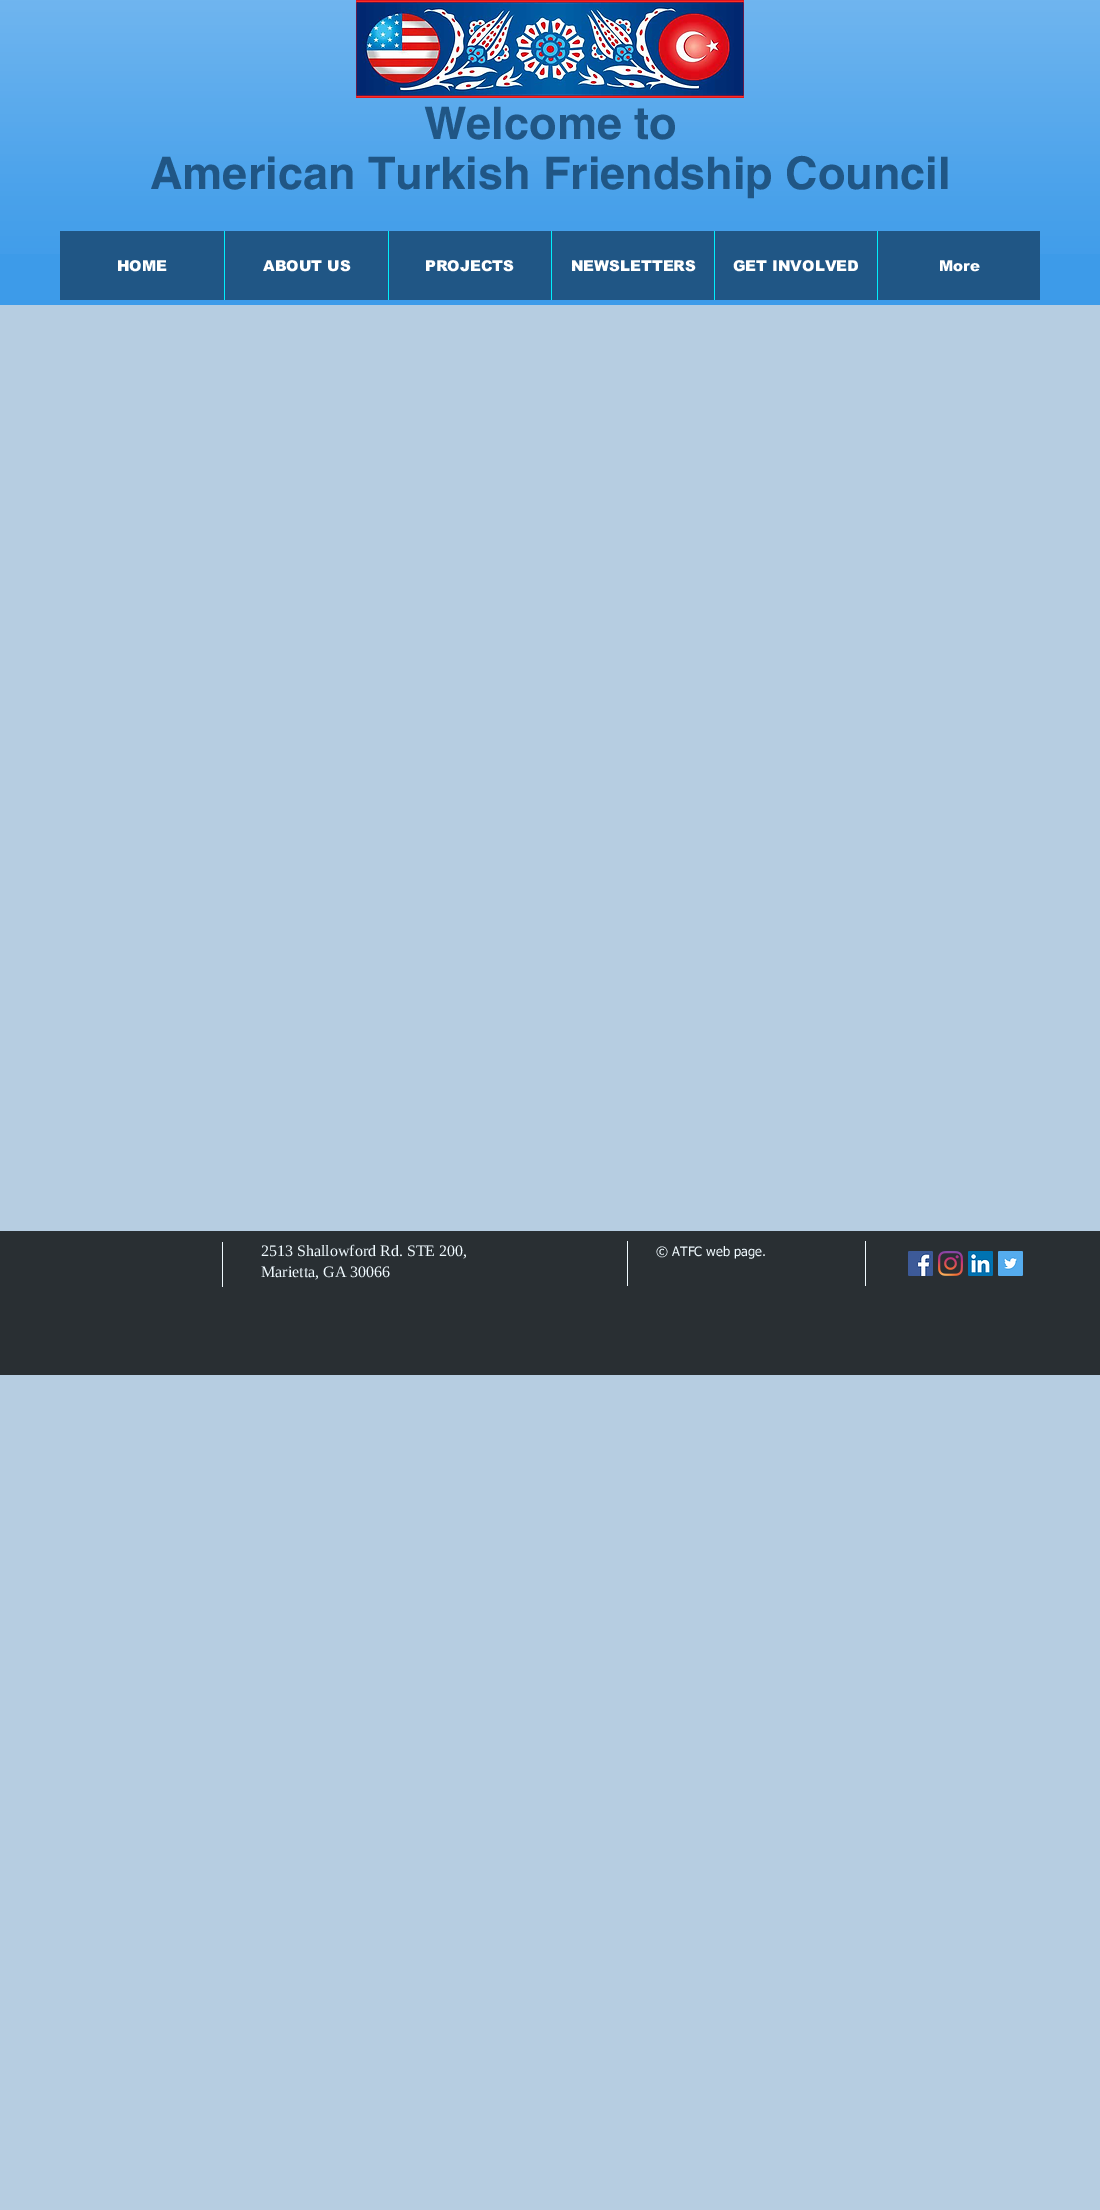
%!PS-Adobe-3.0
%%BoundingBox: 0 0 1100 2210
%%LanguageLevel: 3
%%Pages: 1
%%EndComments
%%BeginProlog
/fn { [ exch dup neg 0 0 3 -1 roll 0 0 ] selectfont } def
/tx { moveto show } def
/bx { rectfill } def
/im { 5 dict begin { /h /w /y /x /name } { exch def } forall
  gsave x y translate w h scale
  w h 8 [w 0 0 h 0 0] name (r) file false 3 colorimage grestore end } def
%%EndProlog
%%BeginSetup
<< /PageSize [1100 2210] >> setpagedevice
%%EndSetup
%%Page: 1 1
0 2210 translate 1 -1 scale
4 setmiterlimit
0.714 0.804 0.882 setrgbcolor
0 0 1100 2210 bx
0.239 0.608 0.914 setrgbcolor
0 0 1100 305 bx
(image0.raw) 0 0 1100 254 im
(image1.raw) 356 0 388 98 im
/helvetica-Bold 45 fn
0.125 0.337 0.522 setrgbcolor
(Welcome to) 424 139 tx
(American Turkish Friendship Council) 150 189 tx
60 231 980 69 bx
/arial-Black 15 fn
1 setgray
(HOME) 117 271 tx
0 0.937 0.988 setrgbcolor
224 231 1 69 bx
1 setgray
(ABOUT US) 263 271 tx
0 0.937 0.988 setrgbcolor
388 231 1 69 bx
1 setgray
(PROJECTS) 425 271 tx
0 0.937 0.988 setrgbcolor
551 231 1 69 bx
1 setgray
(NEWSLETTERS) 571 271 tx
0 0.937 0.988 setrgbcolor
714 231 1 69 bx
1 setgray
(GET INVOLVED) 733 271 tx
0 0.937 0.988 setrgbcolor
877 231 1 69 bx
1 setgray
(More) 939 271 tx
0.161 0.184 0.2 setrgbcolor
0 1231 1100 144 bx
0.941 0.98 1 setrgbcolor
222 1242 1 45 bx
/LiberationSerif-Regular 16 fn
(2513 Shallowford Rd. STE 200,) 261 1256 tx
(Marietta, GA 30066) 261 1277 tx
627 1241 1 45 bx
/tahoma-Regular 13 fn
(© ATFC web page.) 656 1256 tx
865 1241 1 45 bx
(image2.raw) 908 1251 25 25 im
(image3.raw) 938 1251 25 25 im
(image4.raw) 968 1251 25 25 im
(image5.raw) 998 1251 25 25 im
showpage
%%EOF
